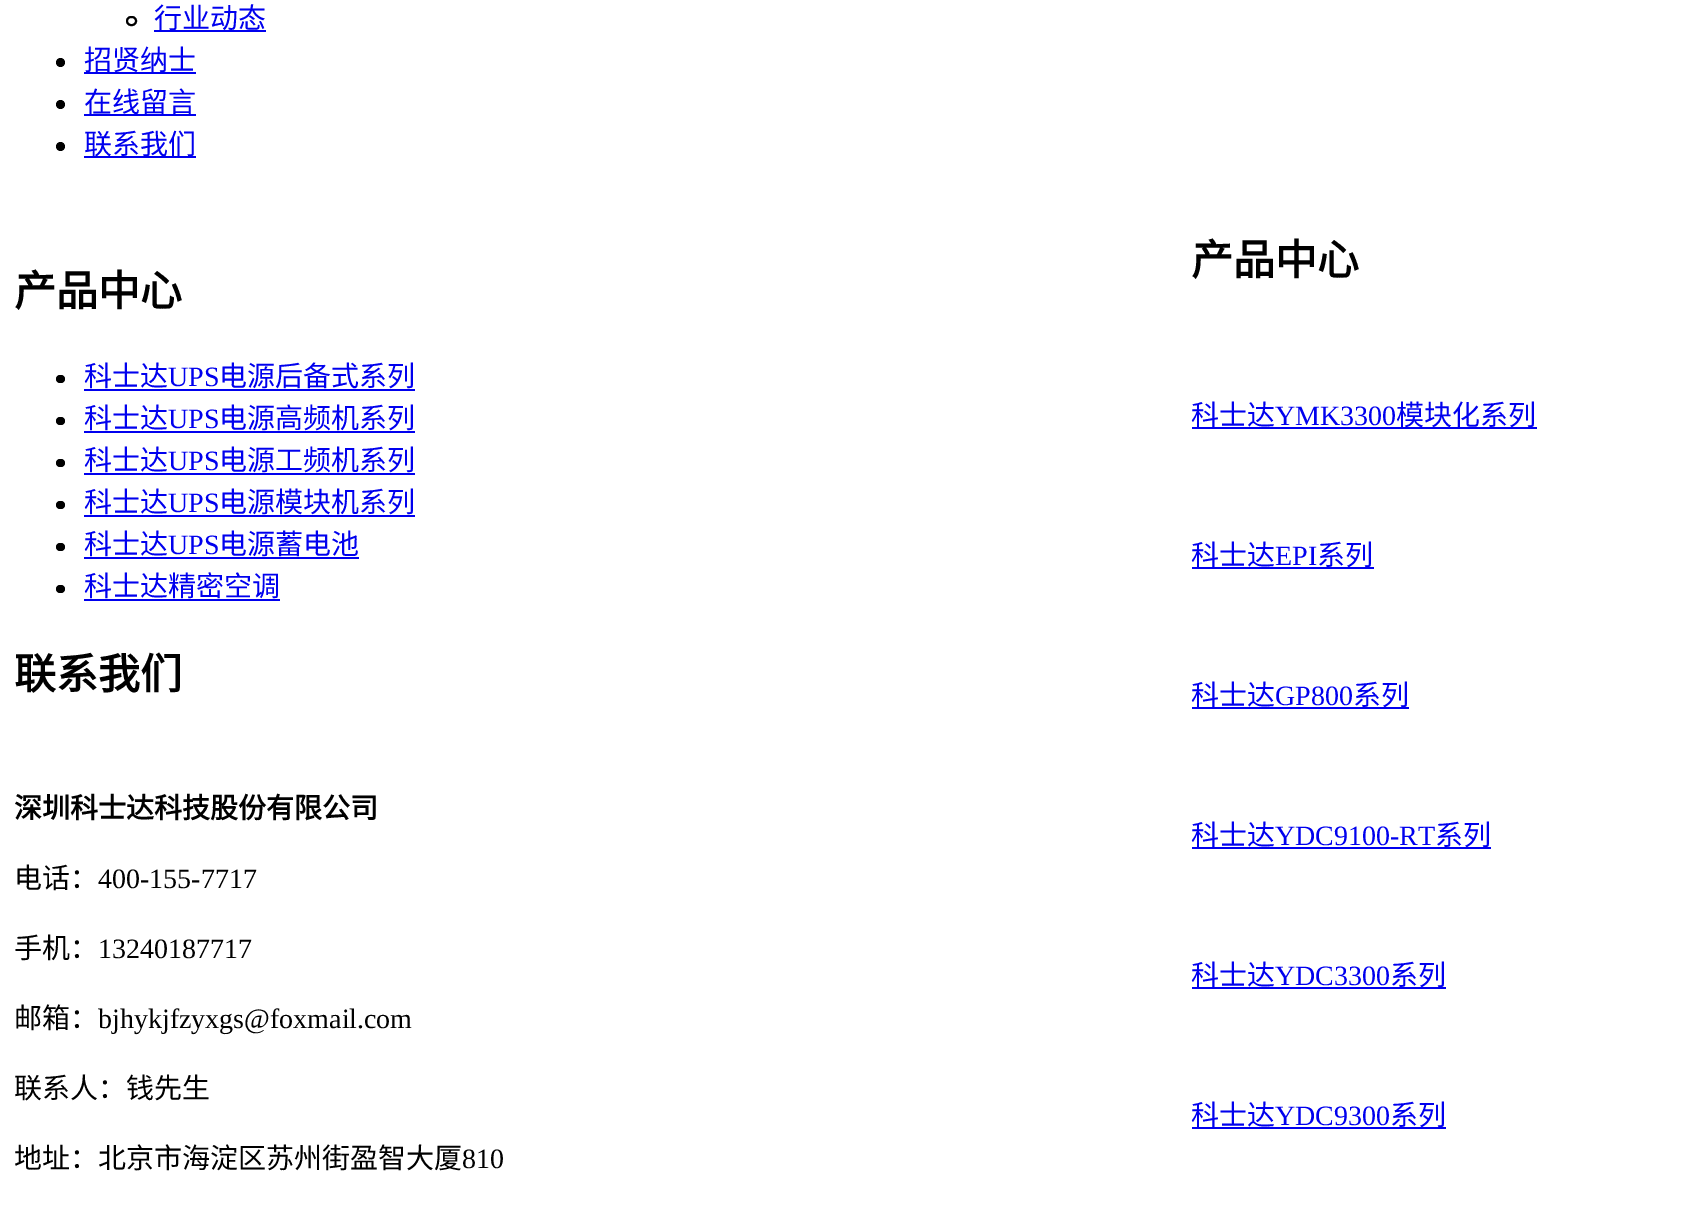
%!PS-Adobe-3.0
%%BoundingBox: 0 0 1703 1212
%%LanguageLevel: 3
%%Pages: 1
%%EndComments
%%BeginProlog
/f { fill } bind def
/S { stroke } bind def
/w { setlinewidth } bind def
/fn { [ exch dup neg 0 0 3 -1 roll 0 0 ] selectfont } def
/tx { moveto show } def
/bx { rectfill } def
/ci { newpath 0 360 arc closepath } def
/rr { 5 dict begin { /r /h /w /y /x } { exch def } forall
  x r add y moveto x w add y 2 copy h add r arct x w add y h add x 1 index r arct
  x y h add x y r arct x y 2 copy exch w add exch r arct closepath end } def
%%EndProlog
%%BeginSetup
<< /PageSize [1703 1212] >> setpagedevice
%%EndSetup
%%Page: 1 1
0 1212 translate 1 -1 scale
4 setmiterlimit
1 setgray
0 0 1703 1212 bx
0 setgray
2 w
127 17 9 8 4 rr S
0 0 0.933 setrgbcolor
154 30 112 2 bx
/NotoSansCJKSC-Regular 28 fn
(行业动态) 154 28 tx
0 setgray
60.5 62.5 4.5 ci f
0 0 0.933 setrgbcolor
84 72 112 2 bx
(招贤纳士) 84 70 tx
0 setgray
60.5 104.5 4.5 ci f
0 0 0.933 setrgbcolor
84 114 112 2 bx
(在线留言) 84 112 tx
0 setgray
60.5 146.5 4.5 ci f
0 0 0.933 setrgbcolor
84 156 112 2 bx
(联系我们) 84 154 tx
/NotoSansCJKSC-Bold 42 fn
0 setgray
(产品中心) 14 306 tx
56 375 9 8 4 rr f
/NotoSansCJKSC-Regular 28 fn
0 0 0.933 setrgbcolor
(科士达) 84 386 tx
/LiberationSerif-Regular 28 fn
(UPS) 168 386 tx
84 389 331 2 bx
/NotoSansCJKSC-Regular 28 fn
(电源后备式系列) 219 386 tx
0 setgray
56 417 9 8 4 rr f
0 0 0.933 setrgbcolor
(科士达) 84 428 tx
/LiberationSerif-Regular 28 fn
(UPS) 168 428 tx
84 431 331 2 bx
/NotoSansCJKSC-Regular 28 fn
(电源高频机系列) 219 428 tx
0 setgray
56 459 9 8 4 rr f
0 0 0.933 setrgbcolor
(科士达) 84 470 tx
/LiberationSerif-Regular 28 fn
(UPS) 168 470 tx
84 473 331 2 bx
/NotoSansCJKSC-Regular 28 fn
(电源工频机系列) 219 470 tx
0 setgray
56 501 9 8 4 rr f
0 0 0.933 setrgbcolor
(科士达) 84 512 tx
/LiberationSerif-Regular 28 fn
(UPS) 168 512 tx
84 515 331 2 bx
/NotoSansCJKSC-Regular 28 fn
(电源模块机系列) 219 512 tx
0 setgray
56 543 9 8 4 rr f
0 0 0.933 setrgbcolor
(科士达) 84 554 tx
/LiberationSerif-Regular 28 fn
(UPS) 168 554 tx
84 557 275 2 bx
/NotoSansCJKSC-Regular 28 fn
(电源蓄电池) 219 554 tx
0 setgray
56 585 9 8 4 rr f
0 0 0.933 setrgbcolor
(科士达精密空调) 84 596 tx
84 599 196 2 bx
/NotoSansCJKSC-Bold 42 fn
0 setgray
(联系我们) 14 689 tx
/NotoSansCJKSC-Bold 28 fn
(深圳科士达科技股份有限公司) 14 818 tx
/NotoSansCJKSC-Regular 28 fn
(电话：) 14 888 tx
/LiberationSerif-Regular 28 fn
(400-155-7717) 98 888 tx
/NotoSansCJKSC-Regular 28 fn
(手机：) 14 958 tx
/LiberationSerif-Regular 28 fn
(13240187717) 98 958 tx
/NotoSansCJKSC-Regular 28 fn
(邮箱：) 14 1028 tx
/LiberationSerif-Regular 28 fn
(bjhykjfzyxgs@foxmail.com) 98 1028 tx
/NotoSansCJKSC-Regular 28 fn
(联系人：钱先生) 14 1098 tx
(地址：北京市海淀区苏州街盈智大厦) 14 1168 tx
/LiberationSerif-Regular 28 fn
(810) 462 1168 tx
/NotoSansCJKSC-Bold 42 fn
(产品中心) 1191 275 tx
0 0 0.933 setrgbcolor
1192 427 345 2 bx
/NotoSansCJKSC-Regular 28 fn
(科士达) 1191 425 tx
/LiberationSerif-Regular 28 fn
(YMK3300) 1275 425 tx
/NotoSansCJKSC-Regular 28 fn
(模块化系列) 1396 425 tx
1192 567 182 2 bx
(科士达) 1191 565 tx
/LiberationSerif-Regular 28 fn
(EPI) 1275 565 tx
/NotoSansCJKSC-Regular 28 fn
(系列) 1317 565 tx
1192 707 217 2 bx
(科士达) 1191 705 tx
/LiberationSerif-Regular 28 fn
(GP800) 1275 705 tx
/NotoSansCJKSC-Regular 28 fn
(系列) 1353 705 tx
1192 847 299 2 bx
(科士达) 1191 845 tx
/LiberationSerif-Regular 28 fn
(YDC9100-RT) 1275 845 tx
/NotoSansCJKSC-Regular 28 fn
(系列) 1435 845 tx
1192 987 254 2 bx
(科士达) 1191 985 tx
/LiberationSerif-Regular 28 fn
(YDC3300) 1275 985 tx
/NotoSansCJKSC-Regular 28 fn
(系列) 1390 985 tx
1192 1127 254 2 bx
(科士达) 1191 1125 tx
/LiberationSerif-Regular 28 fn
(YDC9300) 1275 1125 tx
/NotoSansCJKSC-Regular 28 fn
(系列) 1390 1125 tx
showpage
%%EOF
